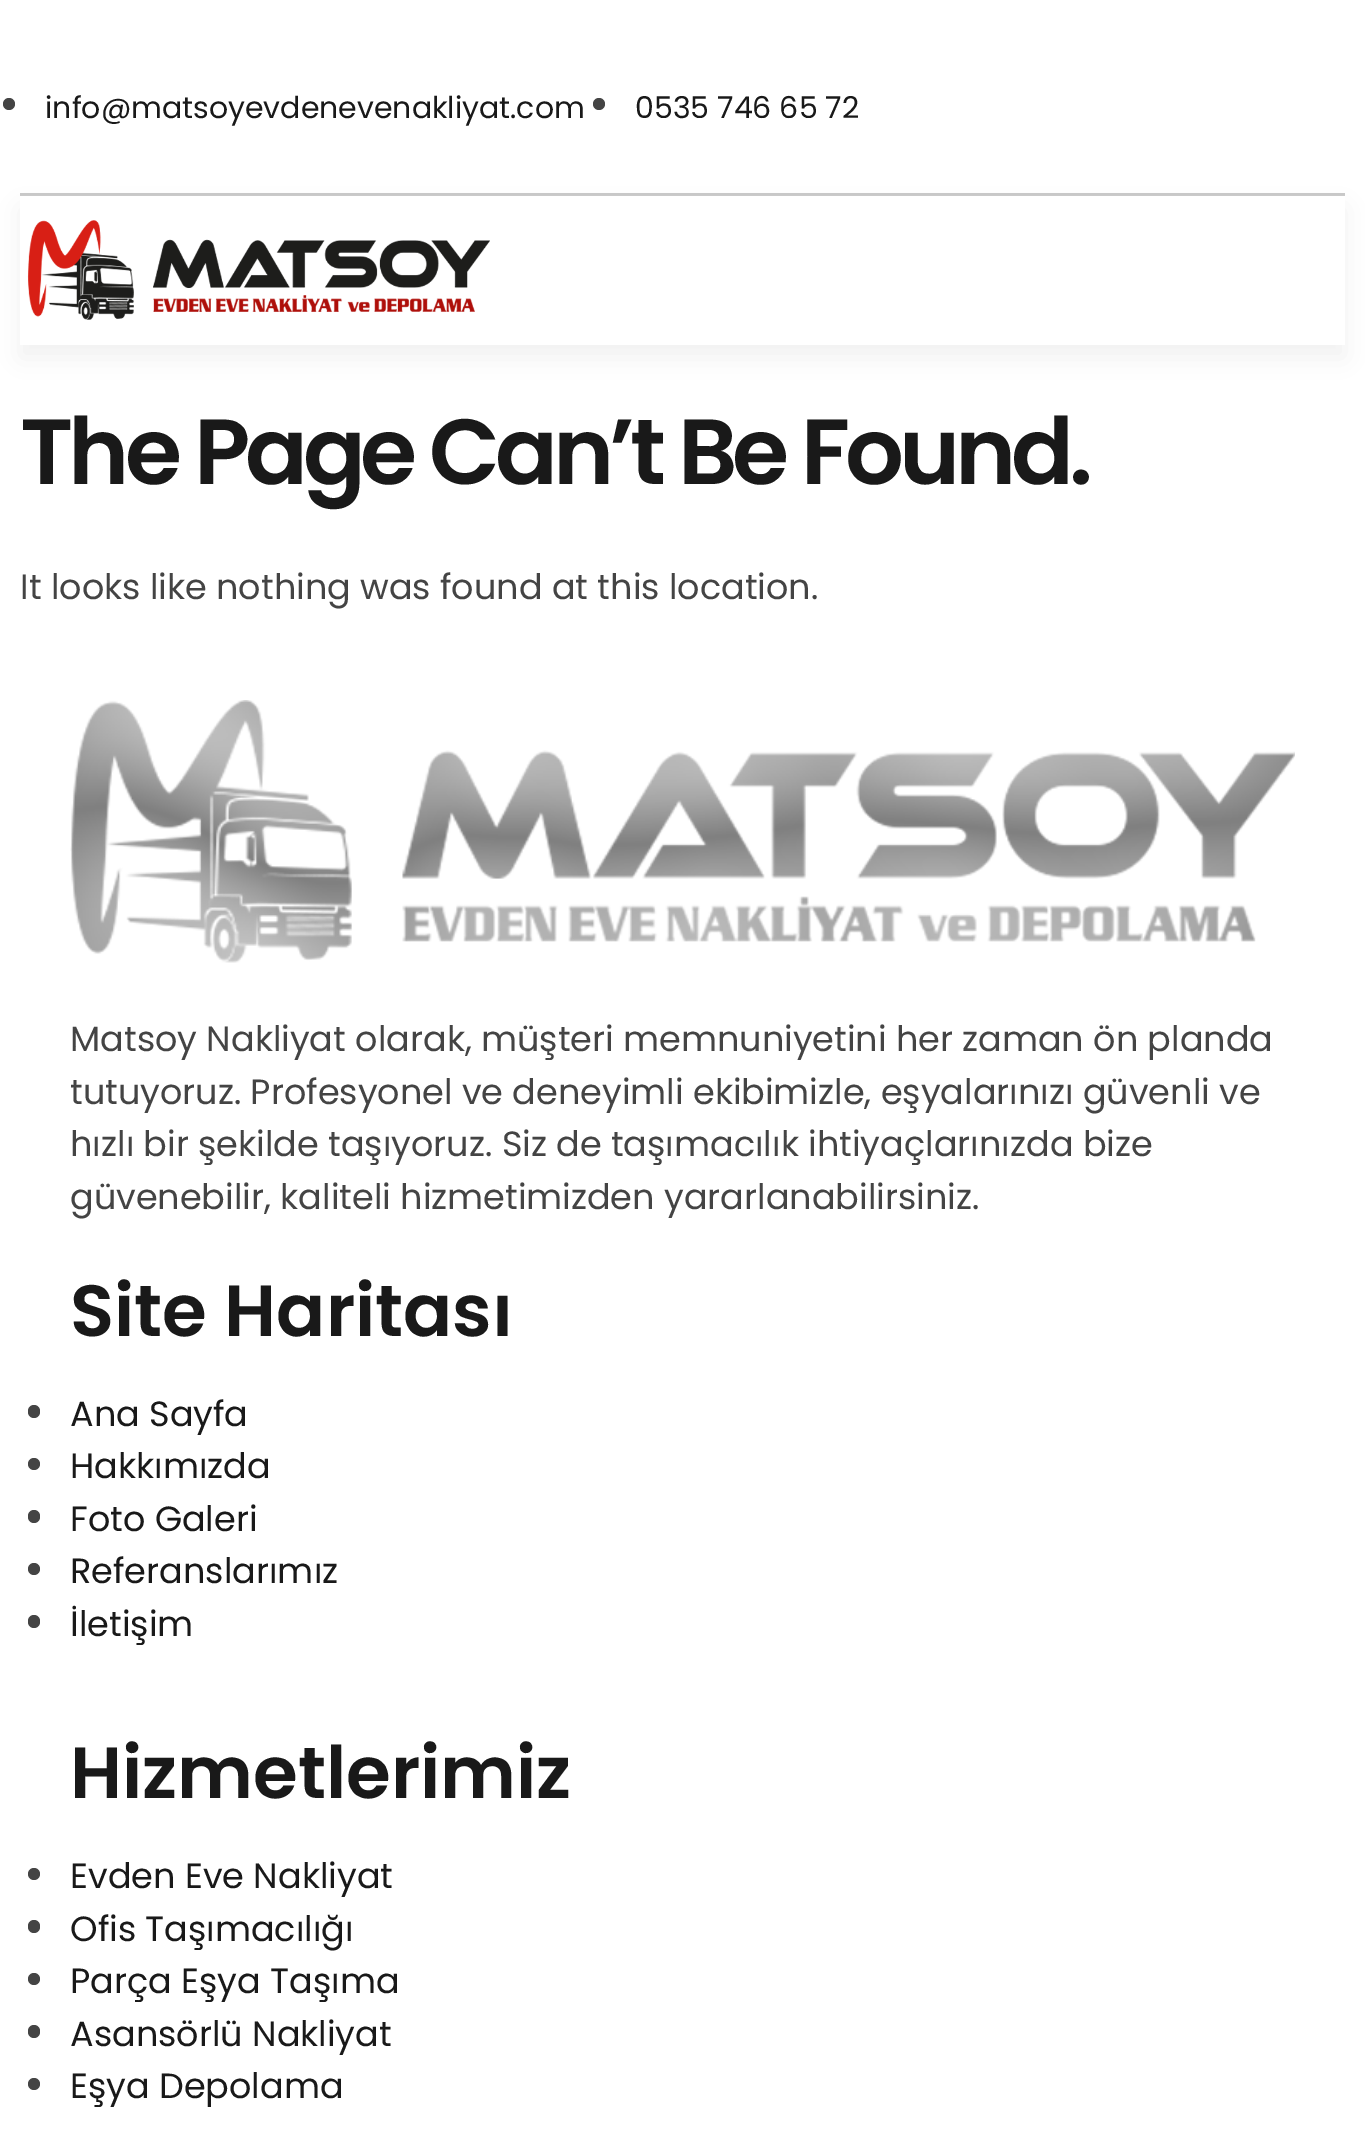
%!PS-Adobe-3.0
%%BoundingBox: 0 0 1365 2141
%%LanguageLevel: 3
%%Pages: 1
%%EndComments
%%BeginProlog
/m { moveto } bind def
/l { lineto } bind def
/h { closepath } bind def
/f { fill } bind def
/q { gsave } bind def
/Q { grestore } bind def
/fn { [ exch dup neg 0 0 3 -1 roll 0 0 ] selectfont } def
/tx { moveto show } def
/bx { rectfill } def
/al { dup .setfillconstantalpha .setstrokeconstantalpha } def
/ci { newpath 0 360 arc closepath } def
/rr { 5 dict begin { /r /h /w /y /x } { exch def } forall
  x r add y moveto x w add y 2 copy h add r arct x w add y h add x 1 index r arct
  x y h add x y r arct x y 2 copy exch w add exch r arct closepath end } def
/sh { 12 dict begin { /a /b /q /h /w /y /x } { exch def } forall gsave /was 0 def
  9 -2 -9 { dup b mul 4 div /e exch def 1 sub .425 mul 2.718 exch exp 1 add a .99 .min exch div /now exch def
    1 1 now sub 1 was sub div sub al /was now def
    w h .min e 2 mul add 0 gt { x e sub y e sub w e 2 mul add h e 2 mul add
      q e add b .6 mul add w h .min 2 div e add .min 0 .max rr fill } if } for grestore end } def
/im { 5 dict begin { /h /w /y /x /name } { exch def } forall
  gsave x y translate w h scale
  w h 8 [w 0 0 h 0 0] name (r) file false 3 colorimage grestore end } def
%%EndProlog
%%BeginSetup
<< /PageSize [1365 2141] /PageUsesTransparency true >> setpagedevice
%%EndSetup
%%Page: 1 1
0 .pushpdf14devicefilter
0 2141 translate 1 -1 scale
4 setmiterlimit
1 setgray
0 0 1365 2141 bx
0.792 setgray
20 193 1325 3 bx
0.267 setgray
9 104 6 ci f
/Poppins-Regular 30 fn
0.098 setgray
(info@matsoyevdenevenakliyat.com) 45 118 tx
0.267 setgray
599 104 6 ci f
0.098 setgray
(0535 746 65 72) 635 118 tx
q
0 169 m 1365 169 l 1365 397 l 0 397 l h 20 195 m 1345 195 l 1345 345 l 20 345 l h eoclip newpath
0 setgray
20 208 1325 150 0 12.5 0.05 sh
Q
(image0.raw) 27 220 463 100 im
/Poppins-SemiBold 92.5 fn
20 484 m -5 0 (The Page Can’t Be Found.) ashow
/Poppins-Regular 35 fn
0.267 setgray
(It looks like nothing was found at this location.) 20 599 tx
(image1.raw) 70 700 1225 263 im
(Matsoy Nakliyat olarak, müşteri memnuniyetini her zaman ön planda) 70 1051 tx
(tutuyoruz. Profesyonel ve deneyimli ekibimizle, eşyalarınızı güvenli ve) 70 1104 tx
(hızlı bir şekilde taşıyoruz. Siz de taşımacılık ihtiyaçlarınızda bize) 70 1156 tx
(güvenebilir, kaliteli hizmetimizden yararlanabilirsiniz.) 70 1209 tx
/Poppins-SemiBold 72.5 fn
0.098 setgray
(Site Haritası) 70 1336 tx
0.267 setgray
28 1405 12 13 6 rr f
/Poppins-Regular 35 fn
0.098 setgray
(Ana Sayfa) 70 1426 tx
0.267 setgray
34 1464 6 ci f
0.098 setgray
(Hakkımızda) 70 1478 tx
0.267 setgray
28 1510 12 13 6 rr f
0.098 setgray
(Foto Galeri) 70 1531 tx
0.267 setgray
34 1569 6 ci f
0.098 setgray
(Referanslarımız) 70 1583 tx
0.267 setgray
28 1615 12 13 6 rr f
0.098 setgray
(İletişim) 70 1636 tx
/Poppins-SemiBold 72.5 fn
(Hizmetlerimiz) 70 1798 tx
0.267 setgray
34 1874 6 ci f
/Poppins-Regular 35 fn
0.098 setgray
(Evden Eve Nakliyat) 70 1888 tx
0.267 setgray
28 1920 12 13 6 rr f
0.098 setgray
(Ofis Taşımacılığı) 70 1941 tx
0.267 setgray
34 1979 6 ci f
0.098 setgray
(Parça Eşya Taşıma) 70 1993 tx
0.267 setgray
28 2025 12 13 6 rr f
0.098 setgray
(Asansörlü Nakliyat) 70 2046 tx
0.267 setgray
34 2084 6 ci f
0.098 setgray
(Eşya Depolama) 70 2098 tx
.poppdf14devicefilter showpage
%%EOF
